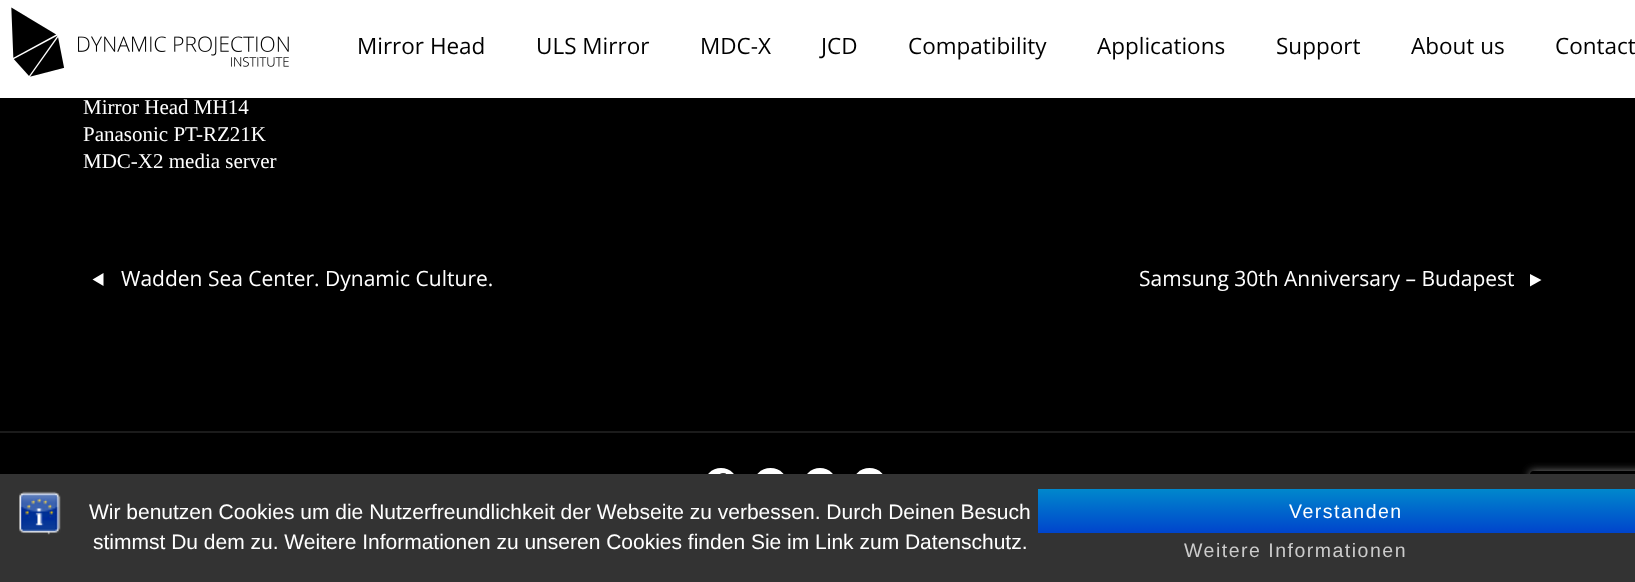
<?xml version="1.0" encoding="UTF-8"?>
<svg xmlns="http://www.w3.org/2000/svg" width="1635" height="582">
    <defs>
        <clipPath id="clip1"><path d="M 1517 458 H 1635 V 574 H 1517 Z M 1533 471 H 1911 C 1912.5 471 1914 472.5 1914 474 V 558 C 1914 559.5 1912.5 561 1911 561 H 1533 C 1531.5 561 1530 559.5 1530 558 V 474 C 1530 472.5 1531.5 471 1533 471 Z" clip-rule="evenodd"/></clipPath>
        <filter id="blur1" x="-50%" y="-200%" width="200%" height="500%"><feGaussianBlur stdDeviation="4"/></filter>
        <linearGradient id="g1" gradientUnits="userSpaceOnUse" x1="1346" y1="489" x2="1346" y2="533"><stop offset="0" stop-color="#0088CC"/><stop offset="1" stop-color="#0044CC"/></linearGradient>
    </defs>
    <rect width="100%" height="100%" fill="#000000"/>
    <rect x="0" y="0" width="1635" height="98" fill="#FFFFFF"/>
    <image x="11" y="7" width="278" height="70" href="img_01.png"/>
    <text x="357" y="54" font-family="Open Sans" font-size="22.5" fill="#000000">Mirror Head</text>
    <text x="536" y="54" font-family="Open Sans" font-size="22.5" fill="#000000">ULS Mirror</text>
    <text x="700" y="54" font-family="Open Sans" font-size="22.5" fill="#000000">MDC-X</text>
    <text x="821" y="54" font-family="Open Sans" font-size="22.5" fill="#000000">JCD</text>
    <text x="908" y="54" font-family="Open Sans" font-size="22.5" fill="#000000">Compatibility</text>
    <text x="1097" y="54" font-family="Open Sans" font-size="22.5" fill="#000000">Applications</text>
    <text x="1276" y="54" font-family="Open Sans" font-size="22.5" fill="#000000">Support</text>
    <text x="1411" y="54" font-family="Open Sans" font-size="22.5" fill="#000000">About us</text>
    <text x="1555" y="54" font-family="Open Sans" font-size="22.5" fill="#000000">Contact</text>
    <text font-family="Liberation Serif" font-size="21" fill="#FFFFFF">
        <tspan x="83" y="114">Mirror Head MH14</tspan>
        <tspan x="83" y="141">Panasonic PT-RZ21K</tspan>
        <tspan x="83" y="168">MDC-X2 media server</tspan>
    </text>
    <text x="121" y="286" font-family="Open Sans" font-size="21" fill="#FFFFFF">Wadden Sea Center. Dynamic Culture.</text>
    <path d="M 103.5 286 L 92.5 279.5 L 103.5 273 Z" fill="#FFFFFF"/>
    <text x="1139" y="286" font-family="Open Sans" font-size="21" fill="#FFFFFF">Samsung 30th Anniversary – Budapest</text>
    <path d="M 1530 274 L 1541.5 280 L 1530 286.5 Z" fill="#FFFFFF"/>
    <rect x="0" y="431" width="1635" height="2" fill="#1B1B1B"/>
    <rect x="704" y="468" width="34" height="35" rx="17" fill="#FFFFFF"/>
    <image x="720" y="473" width="6" height="1" href="img_02.png"/>
    <circle cx="770.5" cy="485.5" r="17.5" fill="#FFFFFF"/>
    <rect x="803" y="468" width="34" height="35" rx="17" fill="#FFFFFF"/>
    <circle cx="869.5" cy="485.5" r="17.5" fill="#FFFFFF"/>
    <g clip-path="url(#clip1)">
        <rect x="1530" y="471" width="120" height="90" rx="3" fill="#808080" filter="url(#blur1)"/>
    </g>
    <rect x="0" y="474" width="1635" height="108" fill="#333333"/>
    <image x="19" y="491" width="42" height="44" href="img_03.png"/>
    <text x="89" y="519" font-family="Liberation Sans" font-size="21" fill="#FFFFFF">Wir benutzen Cookies um die Nutzerfreundlichkeit der Webseite zu verbessen. Durch Deinen Besuch</text>
    <text x="93" y="549" font-family="Liberation Sans" font-size="21" fill="#FFFFFF">stimmst Du dem zu. Weitere Informationen zu unseren Cookies finden Sie im Link zum Datenschutz.</text>
    <rect x="1038" y="489" width="597" height="44" fill="url(#g1)"/>
    <text x="1289" y="518" font-family="Liberation Sans" font-size="19.5" letter-spacing="1.5" fill="#FFFFFF">Verstanden</text>
    <text x="1184" y="557" font-family="Liberation Sans" font-size="19.5" letter-spacing="1.5" fill="#CCCCCC">Weitere Informationen</text>
</svg>
